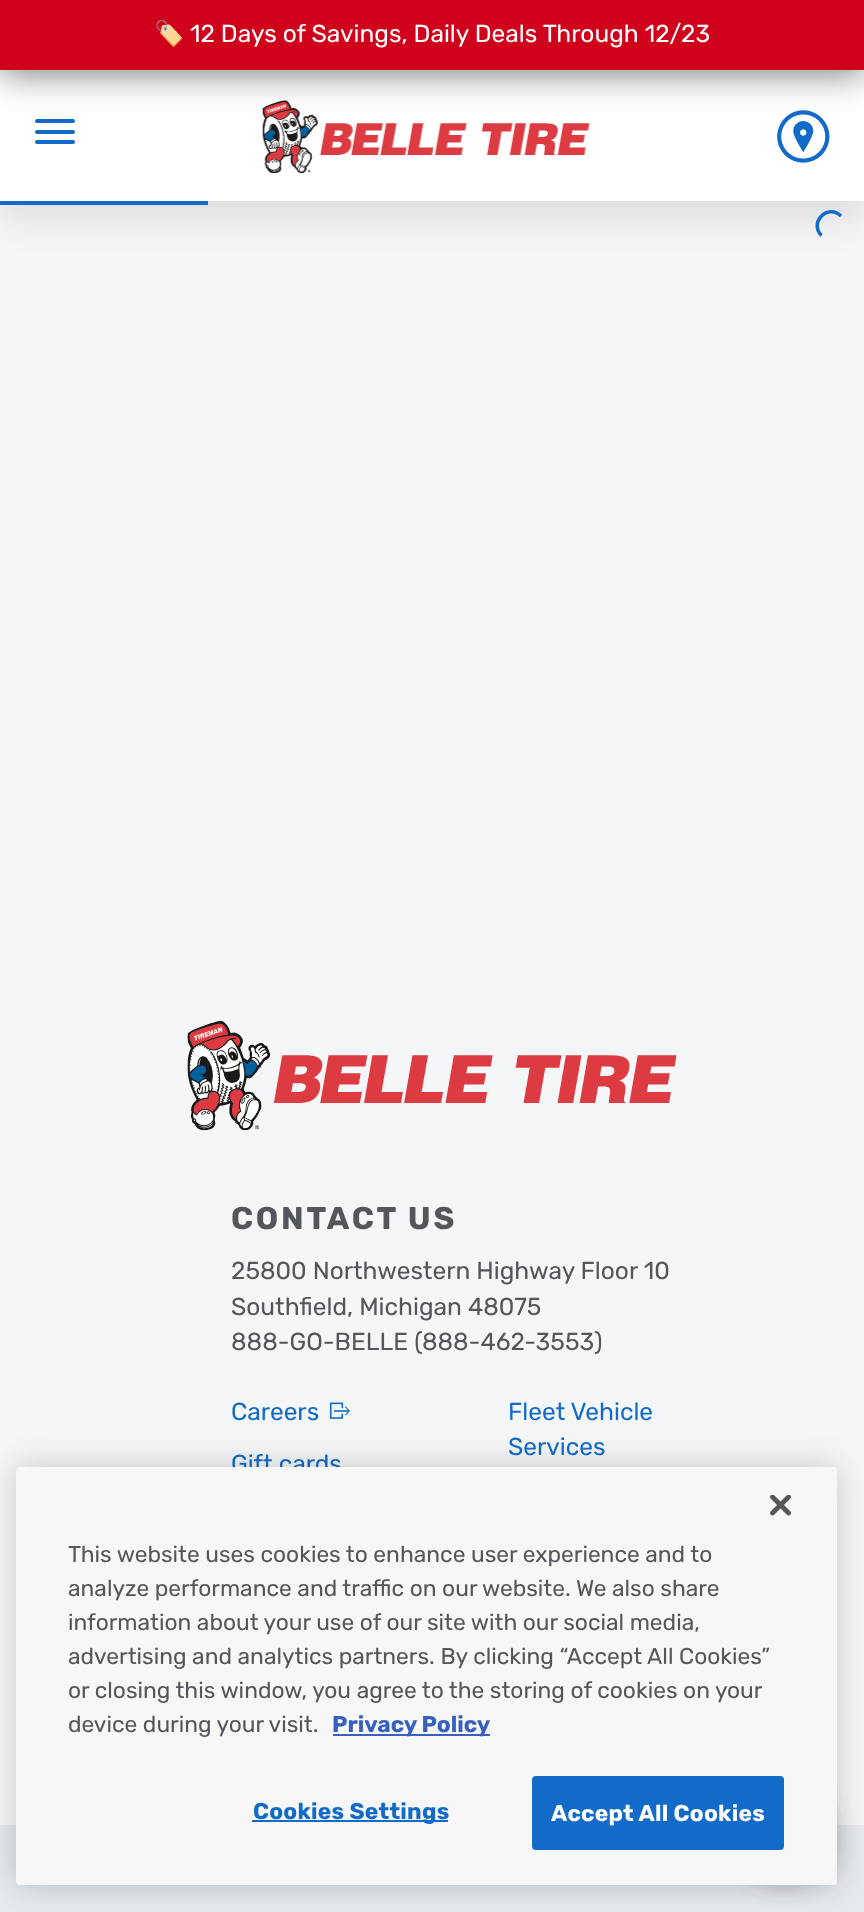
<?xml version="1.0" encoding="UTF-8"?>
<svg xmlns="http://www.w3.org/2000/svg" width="864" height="1912">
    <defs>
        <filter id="blur1" x="-50%" y="-200%" width="200%" height="500%"><feGaussianBlur stdDeviation="17.5"/></filter>
        <filter id="blur2" x="-50%" y="-200%" width="200%" height="500%"><feGaussianBlur stdDeviation="16"/></filter>
        <filter id="blur3" x="-50%" y="-200%" width="200%" height="500%"><feGaussianBlur stdDeviation="9.5"/></filter>
    </defs>
    <rect width="100%" height="100%" fill="#F4F6F7"/>
    <rect x="0" y="18" width="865" height="201" fill="#000000" fill-opacity="0.1" filter="url(#blur1)"/>
    <rect x="0" y="70" width="864" height="131" fill="#FFFFFF"/>
    <rect x="0" y="4" width="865" height="70" fill="#000000" fill-opacity="0.5" filter="url(#blur1)"/>
    <rect x="0" y="0" width="864" height="70" fill="#D0021B"/>
    <text x="154" y="42" font-family="Noto Color Emoji" font-size="24.5" font-weight="700" fill="#FFFFFF">🏷️</text>
    <text x="190" y="42" font-family="Rubik" font-size="24.5" fill="#FFFFFF">12 Days of Savings, Daily Deals Through 12/23</text>
    <rect x="35" y="119" width="40" height="4" rx="2" fill="#126BC9"/>
    <rect x="35" y="130" width="40" height="4" rx="2" fill="#126BC9"/>
    <rect x="35" y="140" width="40" height="4" rx="2" fill="#126BC9"/>
    <image x="262" y="100" width="328" height="73" href="img_01.png"/>
    <image x="777" y="110" width="53" height="53" href="img_02.png"/>
    <rect x="0" y="201" width="208" height="4" fill="#126BC9"/>
    <path d="M 821.5 235.5 C 808.5 222.5 828 203 841 216" fill="none" stroke="#126BC9" stroke-width="3.5"/>
    <image x="187" y="1021" width="490" height="110" href="img_03.png"/>
    <text x="231" y="1229" font-family="Rubik" font-size="31.5" font-weight="700" letter-spacing="2.75" fill="#53565A">CONTACT US</text>
    <text font-family="Rubik" font-size="24.5" fill="#53565A">
        <tspan x="231" y="1279">25800 Northwestern Highway Floor 10</tspan>
        <tspan x="231" y="1315">Southfield, Michigan 48075</tspan>
        <tspan x="231" y="1350">888-GO-BELLE (888-462-3553)</tspan>
    </text>
    <text x="231" y="1420" font-family="Rubik" font-size="24.5" fill="#126BC9">Careers</text>
    <image x="329" y="1402" width="21" height="17" href="img_04.png"/>
    <text x="231" y="1472" font-family="Rubik" font-size="24.5" fill="#126BC9">Gift cards</text>
    <text font-family="Rubik" font-size="24.5" fill="#126BC9">
        <tspan x="508" y="1420">Fleet Vehicle</tspan>
        <tspan x="508" y="1455">Services</tspan>
    </text>
    <rect x="0" y="1825" width="864" height="87" fill="#E6E9ED"/>
    <rect x="16" y="1467" width="821" height="418" rx="4" fill="#000000" fill-opacity="0.2" filter="url(#blur2)"/>
    <rect x="732" y="1783" width="105" height="105" rx="52.5" fill="#585858" fill-opacity="0.27" filter="url(#blur3)"/>
    <rect x="16" y="1467" width="821" height="418" rx="4" fill="#F7F7F7"/>
    <image x="770" y="1495" width="21" height="21" href="img_05.png"/>
    <text font-family="Rubik" font-size="22.75" fill="#53565A">
        <tspan x="68" y="1562">This website uses cookies to enhance user experience and to</tspan>
        <tspan x="68" y="1596">analyze performance and traffic on our website. We also share</tspan>
        <tspan x="68" y="1630">information about your use of our site with our social media,</tspan>
        <tspan x="68" y="1664">advertising and analytics partners. By clicking “Accept All Cookies”</tspan>
        <tspan x="68" y="1698">or closing this window, you agree to the storing of cookies on your</tspan>
        <tspan x="68" y="1732">device during your visit.</tspan>
    </text>
    <rect x="333" y="1734" width="157" height="2" fill="#3860BE"/>
    <text x="332" y="1732" font-family="Rubik" font-size="22.75" font-weight="700" fill="#3860BE">Privacy Policy</text>
    <rect x="252" y="1820" width="196" height="2" fill="#126BC9"/>
    <text x="253" y="1819" font-family="Rubik" font-size="22.75" font-weight="700" letter-spacing="0.25" fill="#126BC9">Cookies Settings</text>
    <rect x="533" y="1777" width="250" height="72" rx="3" fill="#126BC9" stroke="#126BC9" stroke-width="2"/>
    <text x="551" y="1821" font-family="Rubik" font-size="22.75" font-weight="700" letter-spacing="0.25" fill="#FFFFFF">Accept All Cookies</text>
</svg>
